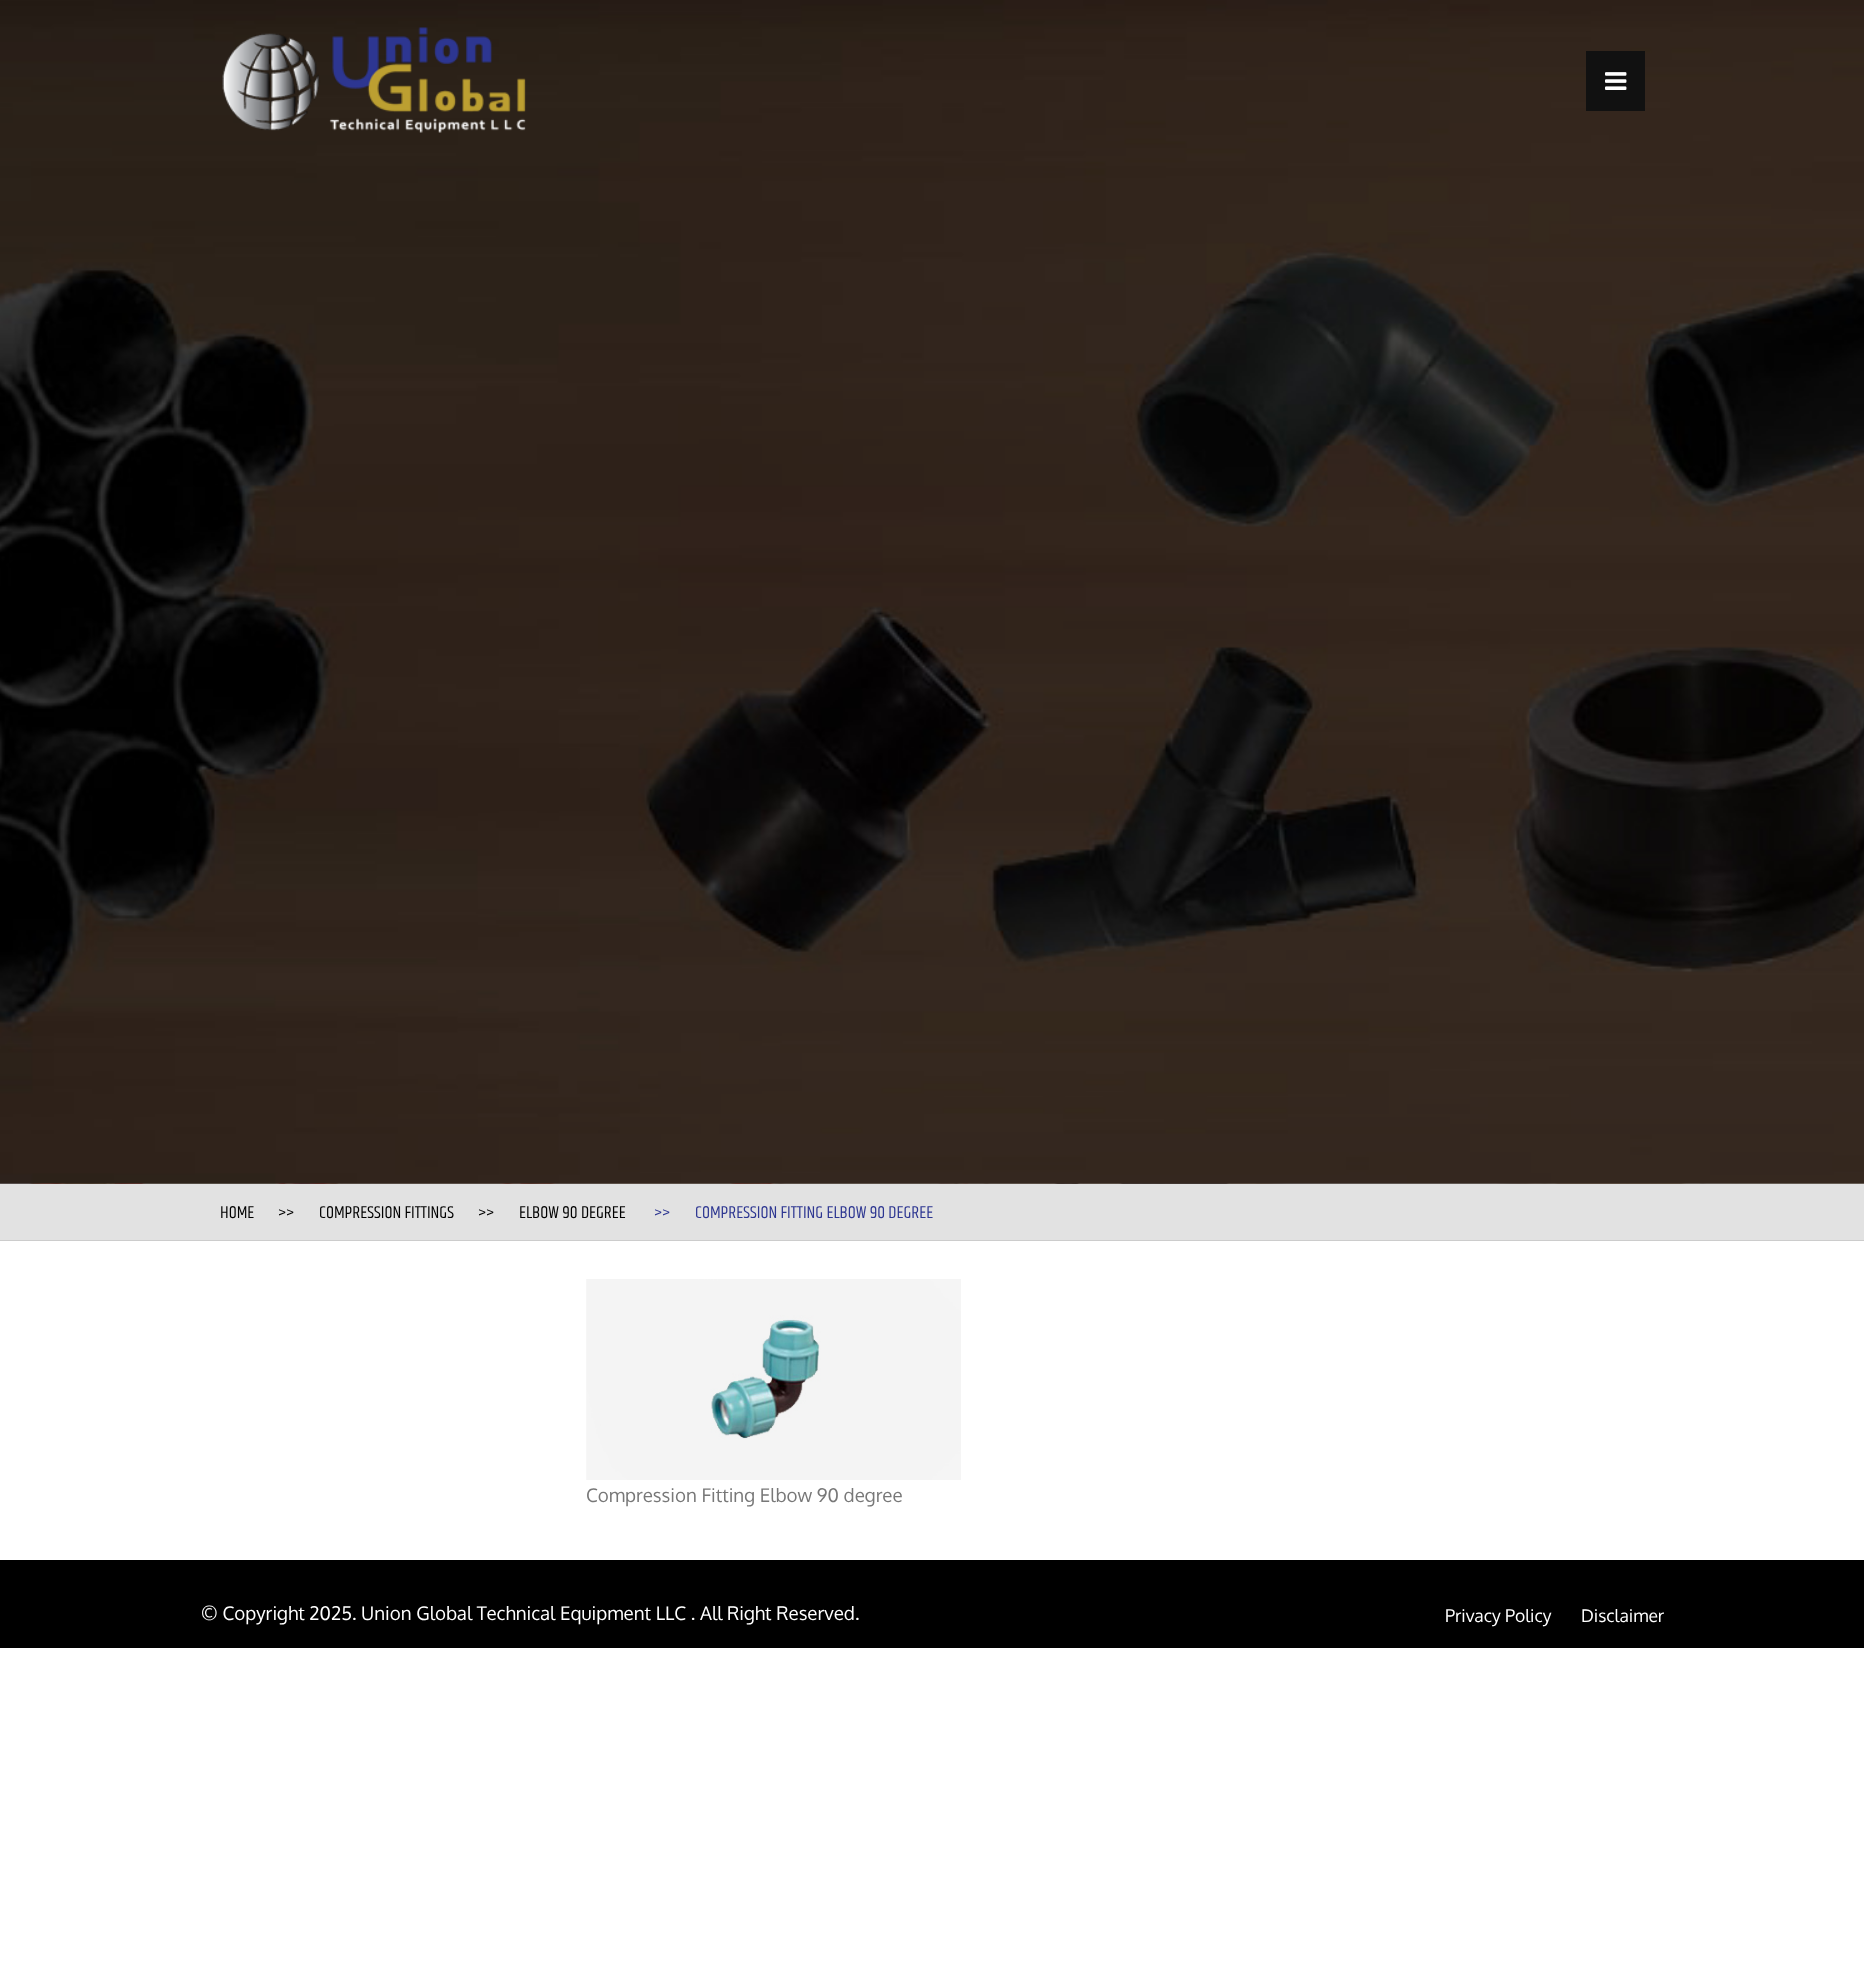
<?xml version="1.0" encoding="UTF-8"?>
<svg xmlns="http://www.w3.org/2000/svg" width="1864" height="1973">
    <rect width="100%" height="100%" fill="#FFFFFF"/>
    <image x="0" y="1183" width="1864" height="1" href="img_01.png"/>
    <image x="0" y="0" width="1864" height="1184" href="img_02.png"/>
    <image x="222" y="27" width="304" height="106" href="img_03.png"/>
    <rect x="1586" y="51" width="59" height="60" fill="#111111"/>
    <image x="1605" y="72" width="22" height="18" href="img_04.png"/>
    <rect x="0" y="1184" width="1864" height="56" fill="#E2E2E2"/>
    <rect x="0" y="1240" width="1864" height="1" fill="#CCCCCC"/>
    <text x="220" y="1218" font-family="Khand" font-size="17.5" fill="#000000">HOME</text>
    <text x="278" y="1218" font-family="Khand" font-size="17.5" fill="#000000">&gt;&gt;</text>
    <text x="319" y="1218" font-family="Khand" font-size="17.5" fill="#000000">COMPRESSION FITTINGS</text>
    <text x="478" y="1218" font-family="Khand" font-size="17.5" fill="#000000">&gt;&gt;</text>
    <text x="519" y="1218" font-family="Khand" font-size="17.5" fill="#000000">ELBOW 90 DEGREE</text>
    <text x="654" y="1218" font-family="Khand" font-size="17.5" fill="#2D3691">&gt;&gt;</text>
    <text x="695" y="1218" font-family="Khand" font-size="17.5" fill="#2D3691">COMPRESSION FITTING ELBOW 90 DEGREE</text>
    <image x="586" y="1279" width="375" height="201" href="img_05.png"/>
    <text x="586" y="1502" font-family="Oxygen" font-size="18.75" fill="#787878">Compression Fitting Elbow 90 degree</text>
    <rect x="0" y="1560" width="1864" height="88" fill="#000000"/>
    <text x="201" y="1620" font-family="Oxygen" font-size="18.75" fill="#FFFFFF">© Copyright 2025. Union Global Technical Equipment LLC . All Right Reserved.</text>
    <text x="1445" y="1622" font-family="Oxygen" font-size="17.5" fill="#FFFFFF">Privacy Policy</text>
    <text x="1581" y="1622" font-family="Oxygen" font-size="17.5" fill="#FFFFFF">Disclaimer</text>
</svg>
